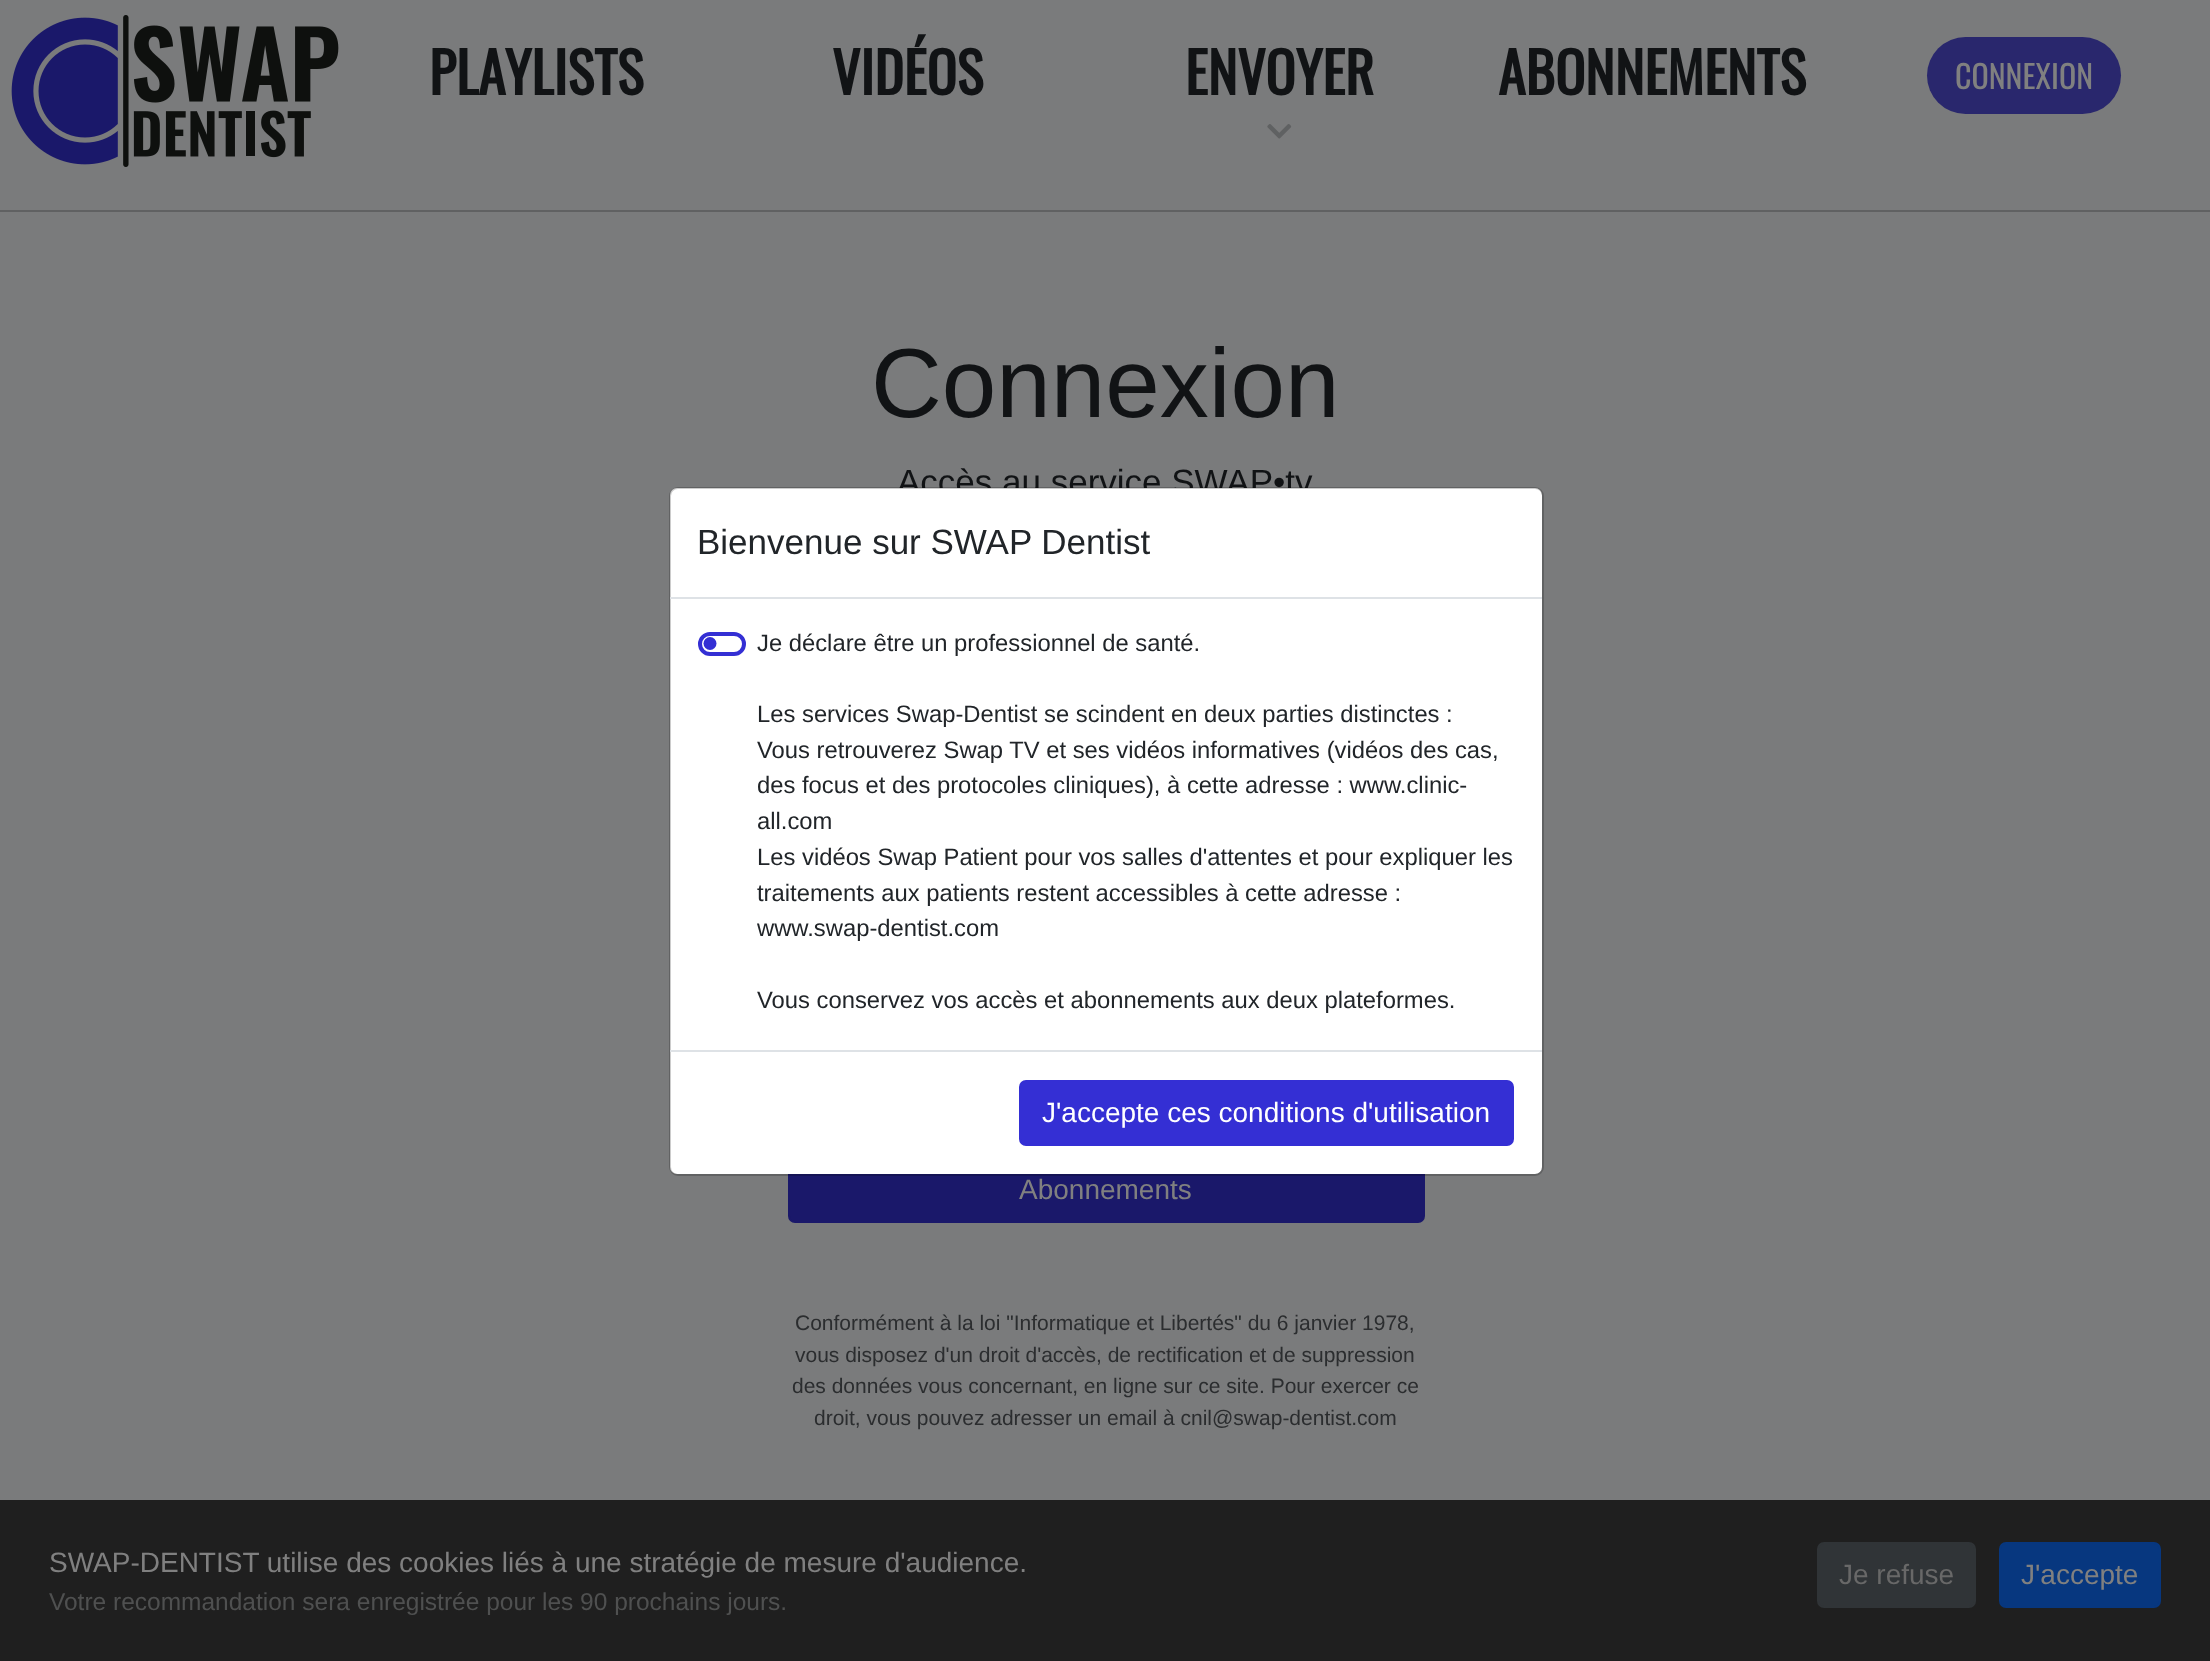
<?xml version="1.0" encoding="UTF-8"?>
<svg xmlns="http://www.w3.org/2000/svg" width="2210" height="1661">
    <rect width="100%" height="100%" fill="#7A7B7C"/>
    <image x="11" y="15" width="328" height="152" href="img_01.png"/>
    <text x="429" y="95" font-family="Oswald" font-size="56" font-weight="700" fill="#111315">PLAYLISTS</text>
    <text x="832" y="95" font-family="Oswald" font-size="56" font-weight="700" fill="#111315">VIDÉOS</text>
    <text x="1185" y="95" font-family="Oswald" font-size="56" font-weight="700" fill="#111315">ENVOYER</text>
    <image x="1267" y="124" width="25" height="15" href="img_02.png"/>
    <text x="1498" y="95" font-family="Oswald" font-size="56" font-weight="700" fill="#111315">ABONNEMENTS</text>
    <rect x="1927" y="37" width="194" height="77" rx="38.5" fill="#29276D"/>
    <text x="1955" y="89" font-family="Oswald" font-size="32" fill="#808080">CONNEXION</text>
    <rect x="0" y="210" width="2210" height="2" fill="#606162"/>
    <text x="871" y="417" font-family="Liberation Sans" font-size="98" fill="#111315">Connexion</text>
    <text x="897" y="494" font-family="Liberation Sans" font-size="35" fill="#111315">Accès au service SWAP•tv</text>
    <rect x="789" y="1158" width="635" height="64" rx="6" fill="#1A186A" stroke="#1A186A" stroke-width="2"/>
    <text x="1019" y="1199" font-family="Liberation Sans" font-size="28" fill="#808080">Abonnements</text>
    <text font-family="Liberation Sans" font-size="21" fill="#2B2D2F">
        <tspan x="795" y="1330">Conformément à la loi "Informatique et Libertés" du 6 janvier 1978,</tspan>
        <tspan x="795" y="1362">vous disposez d'un droit d'accès, de rectification et de suppression</tspan>
    </text>
    <text x="792" y="1393" font-family="Liberation Sans" font-size="21" fill="#2B2D2F">des données vous concernant, en ligne sur ce site. Pour exercer ce</text>
    <text x="814" y="1425" font-family="Liberation Sans" font-size="21" fill="#2B2D2F">droit, vous pouvez adresser un email à cnil@swap-dentist.com</text>
    <rect x="670" y="488" width="872" height="686" rx="7" fill="#FFFFFF"/>
    <rect x="670" y="488" width="873" height="687" rx="8" fill="none" stroke="#000000" stroke-opacity="0.2" stroke-width="2"/>
    <rect x="670" y="597" width="872" height="2" fill="#DEE2E6"/>
    <text x="697" y="554" font-family="Liberation Sans" font-size="35" fill="#212529">Bienvenue sur SWAP Dentist</text>
    <circle cx="710" cy="643.5" r="6.5" fill="#342FD4"/>
    <rect x="700" y="634" width="44" height="20" rx="10" fill="none" stroke="#342FD4" stroke-width="4"/>
    <text x="757" y="651" font-family="Liberation Sans" font-size="23.8" fill="#212529">Je déclare être un professionnel de santé.</text>
    <text font-family="Liberation Sans" font-size="23.8" fill="#212529">
        <tspan x="757" y="722">Les services Swap-Dentist se scindent en deux parties distinctes :</tspan>
        <tspan x="757" y="758">Vous retrouverez Swap TV et ses vidéos informatives (vidéos des cas,</tspan>
        <tspan x="757" y="793">des focus et des protocoles cliniques), à cette adresse : www.clinic-</tspan>
        <tspan x="757" y="829">all.com</tspan>
        <tspan x="757" y="865">Les vidéos Swap Patient pour vos salles d'attentes et pour expliquer les</tspan>
        <tspan x="757" y="901">traitements aux patients restent accessibles à cette adresse :</tspan>
        <tspan x="757" y="936">www.swap-dentist.com</tspan>
    </text>
    <text x="757" y="1008" font-family="Liberation Sans" font-size="23.8" fill="#212529">Vous conservez vos accès et abonnements aux deux plateformes.</text>
    <rect x="670" y="1050" width="872" height="2" fill="#DEE2E6"/>
    <rect x="1020" y="1081" width="493" height="64" rx="6" fill="#342FD4" stroke="#342FD4" stroke-width="2"/>
    <text x="1042" y="1122" font-family="Liberation Sans" font-size="28" fill="#FFFFFF">J'accepte ces conditions d'utilisation</text>
    <rect x="0" y="1500" width="2210" height="161" fill="#1F1F1F"/>
    <text x="49" y="1572" font-family="Liberation Sans" font-size="28" fill="#808080">SWAP-DENTIST utilise des cookies liés à une stratégie de mesure d'audience.</text>
    <text x="49" y="1610" font-family="Liberation Sans" font-size="24.5" fill="#4F5050">Votre recommandation sera enregistrée pour les 90 prochains jours.</text>
    <rect x="1818" y="1543" width="157" height="64" rx="6" fill="#303437" stroke="#303437" stroke-width="2"/>
    <text x="1839" y="1584" font-family="Liberation Sans" font-size="28" fill="#686868">Je refuse</text>
    <rect x="2000" y="1543" width="160" height="64" rx="6" fill="#07377F" stroke="#07377F" stroke-width="2"/>
    <text x="2021" y="1584" font-family="Liberation Sans" font-size="28" fill="#808080">J'accepte</text>
</svg>
